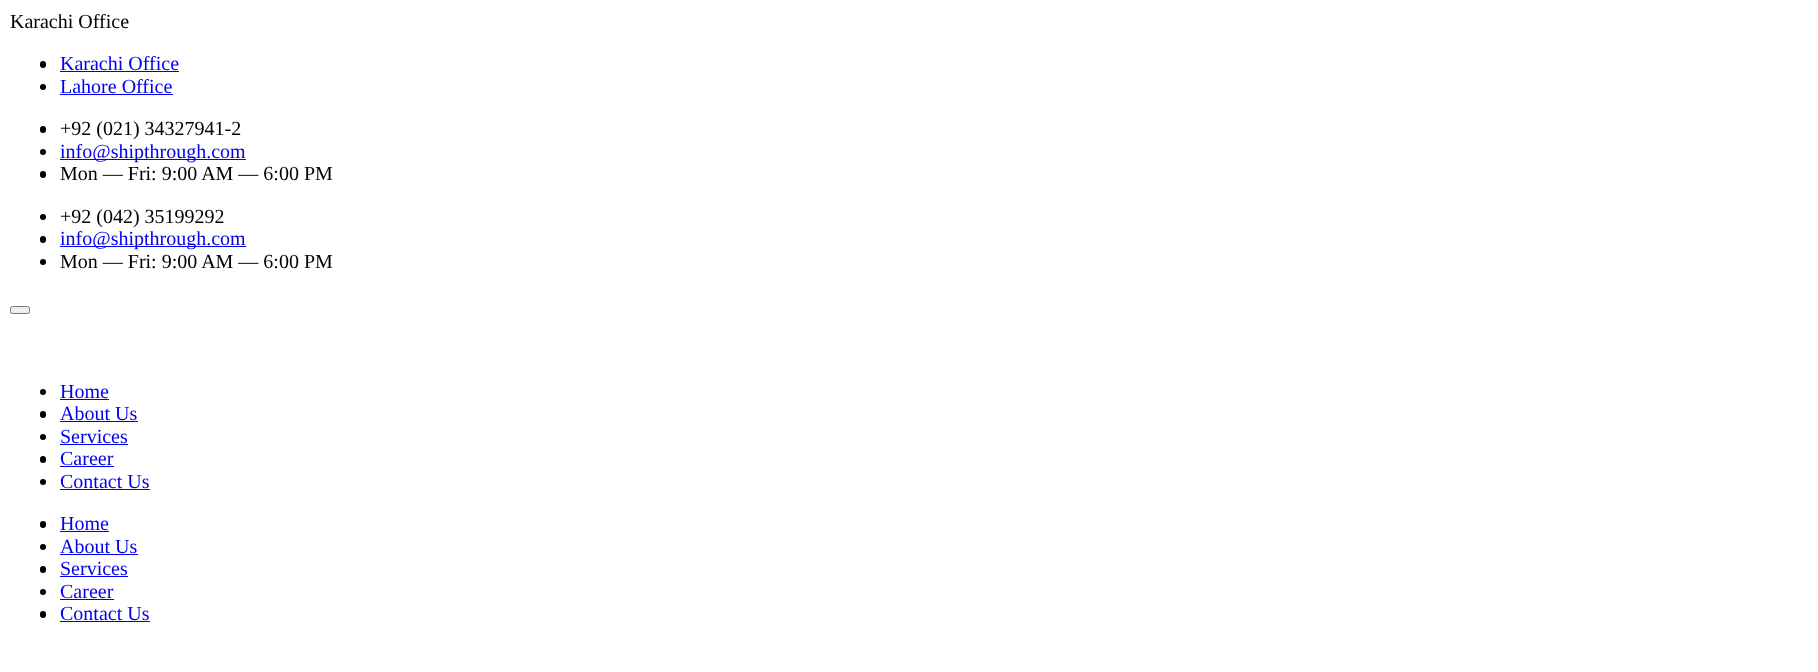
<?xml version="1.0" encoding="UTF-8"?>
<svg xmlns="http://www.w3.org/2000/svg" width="1818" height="672">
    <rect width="100%" height="100%" fill="#FFFFFF"/>
    <text x="10" y="28" font-family="Liberation Serif" font-size="20" fill="#000000">Karachi Office</text>
    <rect x="40" y="61" width="6" height="7" rx="3" fill="#000000"/>
    <text x="60" y="70" font-family="Liberation Serif" font-size="20" fill="#0000EE">Karachi Office</text>
    <rect x="60" y="71" width="119" height="1" fill="#0000EE"/>
    <circle cx="43" cy="87" r="3" fill="#000000"/>
    <text x="60" y="93" font-family="Liberation Serif" font-size="20" fill="#0000EE">Lahore Office</text>
    <rect x="60" y="94" width="113" height="1" fill="#0000EE"/>
    <rect x="40" y="126" width="6" height="7" rx="3" fill="#000000"/>
    <text x="60" y="135" font-family="Liberation Serif" font-size="20" fill="#000000">+92 (021) 34327941-2</text>
    <circle cx="43" cy="152" r="3" fill="#000000"/>
    <rect x="60" y="159" width="186" height="1" fill="#0000EE"/>
    <text x="60" y="158" font-family="Liberation Serif" font-size="20" fill="#0000EE">info@shipthrough.com</text>
    <rect x="40" y="171" width="6" height="7" rx="3" fill="#000000"/>
    <text x="60" y="180" font-family="Liberation Serif" font-size="20" fill="#000000">Mon — Fri: 9:00 AM — 6:00 PM</text>
    <circle cx="43" cy="217" r="3" fill="#000000"/>
    <text x="60" y="223" font-family="Liberation Serif" font-size="20" fill="#000000">+92 (042) 35199292</text>
    <rect x="40" y="236" width="6" height="7" rx="3" fill="#000000"/>
    <rect x="60" y="246" width="186" height="1" fill="#0000EE"/>
    <text x="60" y="245" font-family="Liberation Serif" font-size="20" fill="#0000EE">info@shipthrough.com</text>
    <circle cx="43" cy="262" r="3" fill="#000000"/>
    <text x="60" y="268" font-family="Liberation Serif" font-size="20" fill="#000000">Mon — Fri: 9:00 AM — 6:00 PM</text>
    <rect x="10.5" y="306.5" width="19" height="7" rx="2" fill="#EFEFEF" stroke="#767676"/>
    <circle cx="43" cy="392" r="3" fill="#000000"/>
    <text x="60" y="398" font-family="Liberation Serif" font-size="20" fill="#0000EE">Home</text>
    <rect x="60" y="399" width="49" height="1" fill="#0000EE"/>
    <rect x="40" y="411" width="6" height="7" rx="3" fill="#000000"/>
    <text x="60" y="420" font-family="Liberation Serif" font-size="20" fill="#0000EE">About Us</text>
    <rect x="60" y="421" width="78" height="1" fill="#0000EE"/>
    <circle cx="43" cy="437" r="3" fill="#000000"/>
    <text x="60" y="443" font-family="Liberation Serif" font-size="20" fill="#0000EE">Services</text>
    <rect x="60" y="444" width="68" height="1" fill="#0000EE"/>
    <rect x="40" y="456" width="6" height="7" rx="3" fill="#000000"/>
    <text x="60" y="465" font-family="Liberation Serif" font-size="20" fill="#0000EE">Career</text>
    <rect x="60" y="466" width="54" height="1" fill="#0000EE"/>
    <circle cx="43" cy="482" r="3" fill="#000000"/>
    <text x="60" y="488" font-family="Liberation Serif" font-size="20" fill="#0000EE">Contact Us</text>
    <rect x="60" y="489" width="90" height="1" fill="#0000EE"/>
    <rect x="40" y="521" width="6" height="7" rx="3" fill="#000000"/>
    <text x="60" y="530" font-family="Liberation Serif" font-size="20" fill="#0000EE">Home</text>
    <rect x="60" y="531" width="49" height="1" fill="#0000EE"/>
    <circle cx="43" cy="547" r="3" fill="#000000"/>
    <text x="60" y="553" font-family="Liberation Serif" font-size="20" fill="#0000EE">About Us</text>
    <rect x="60" y="554" width="78" height="1" fill="#0000EE"/>
    <rect x="40" y="566" width="6" height="7" rx="3" fill="#000000"/>
    <text x="60" y="575" font-family="Liberation Serif" font-size="20" fill="#0000EE">Services</text>
    <rect x="60" y="576" width="68" height="1" fill="#0000EE"/>
    <circle cx="43" cy="592" r="3" fill="#000000"/>
    <text x="60" y="598" font-family="Liberation Serif" font-size="20" fill="#0000EE">Career</text>
    <rect x="60" y="599" width="54" height="1" fill="#0000EE"/>
    <rect x="40" y="611" width="6" height="7" rx="3" fill="#000000"/>
    <text x="60" y="620" font-family="Liberation Serif" font-size="20" fill="#0000EE">Contact Us</text>
    <rect x="60" y="621" width="90" height="1" fill="#0000EE"/>
</svg>
